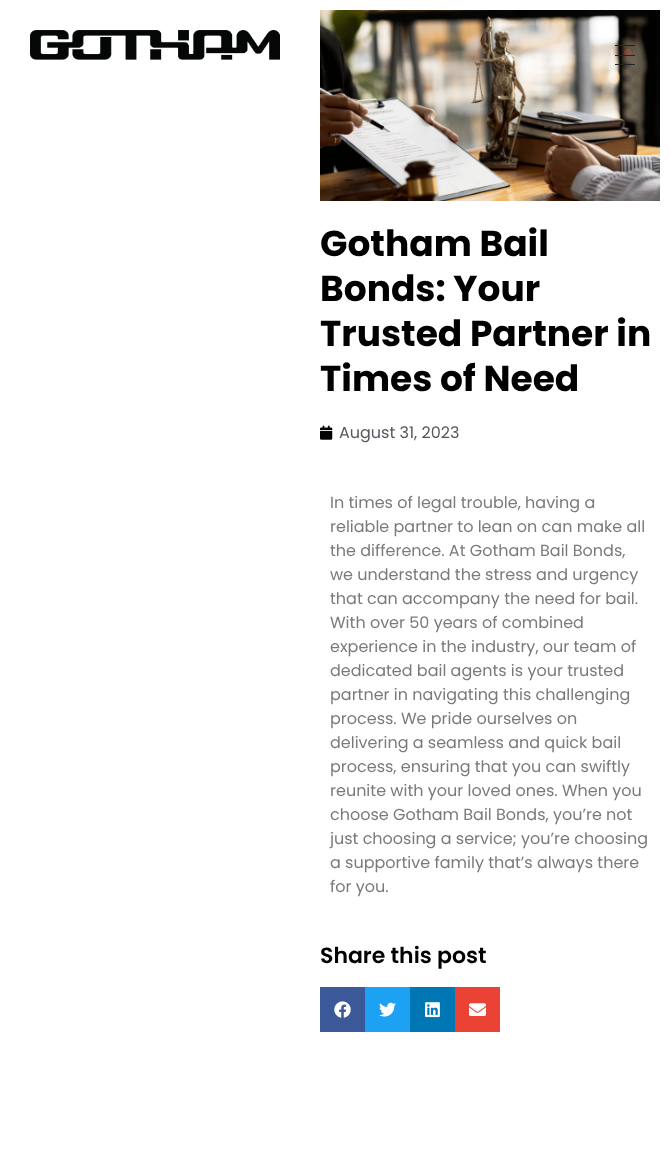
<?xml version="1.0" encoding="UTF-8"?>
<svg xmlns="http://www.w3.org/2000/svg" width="670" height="1158">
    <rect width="100%" height="100%" fill="#FFFFFF"/>
    <image x="30" y="30" width="250" height="30" href="img_01.png"/>
    <image x="320" y="10" width="340" height="191" href="img_02.png"/>
    <rect x="615" y="45" width="20" height="1" fill="#222222"/>
    <rect x="615" y="55" width="20" height="1" fill="#222222"/>
    <rect x="615" y="64" width="20" height="1" fill="#222222"/>
    <text font-family="Poppins" font-size="36" font-weight="700" fill="#000000">
        <tspan x="320" y="256">Gotham Bail</tspan>
        <tspan x="320" y="301">Bonds: Your</tspan>
        <tspan x="320" y="346">Trusted Partner in</tspan>
        <tspan x="320" y="391">Times of Need</tspan>
    </text>
    <image x="320" y="425" width="13" height="15" href="img_03.png"/>
    <text x="339" y="438" font-family="Poppins" font-size="16" fill="#54595F">August 31, 2023</text>
    <text font-family="Poppins" font-size="16" fill="#7A7A7A">
        <tspan x="330" y="508">In times of legal trouble, having a</tspan>
        <tspan x="330" y="532">reliable partner to lean on can make all</tspan>
        <tspan x="330" y="556">the difference. At Gotham Bail Bonds,</tspan>
        <tspan x="330" y="580">we understand the stress and urgency</tspan>
        <tspan x="330" y="604">that can accompany the need for bail.</tspan>
        <tspan x="330" y="628">With over 50 years of combined</tspan>
        <tspan x="330" y="652">experience in the industry, our team of</tspan>
        <tspan x="330" y="676">dedicated bail agents is your trusted</tspan>
        <tspan x="330" y="700">partner in navigating this challenging</tspan>
        <tspan x="330" y="724">process. We pride ourselves on</tspan>
        <tspan x="330" y="748">delivering a seamless and quick bail</tspan>
        <tspan x="330" y="772">process, ensuring that you can swiftly</tspan>
        <tspan x="330" y="796">reunite with your loved ones. When you</tspan>
        <tspan x="330" y="820">choose Gotham Bail Bonds, you’re not</tspan>
        <tspan x="330" y="844">just choosing a service; you’re choosing</tspan>
        <tspan x="330" y="868">a supportive family that’s always there</tspan>
        <tspan x="330" y="892">for you.</tspan>
    </text>
    <text x="320" y="963" font-family="Poppins" font-size="22" font-weight="600" fill="#000000">Share this post</text>
    <rect x="320" y="987" width="45" height="45" fill="#3B5998"/>
    <image x="334" y="1001" width="17" height="17" href="img_04.png"/>
    <rect x="365" y="987" width="45" height="45" fill="#1DA1F2"/>
    <image x="379" y="1002" width="17" height="15" href="img_05.png"/>
    <rect x="410" y="987" width="45" height="45" fill="#0077B5"/>
    <image x="425" y="1002" width="15" height="16" href="img_06.png"/>
    <rect x="455" y="987" width="45" height="45" fill="#EA4335"/>
    <image x="469" y="1003" width="17" height="13" href="img_07.png"/>
</svg>
